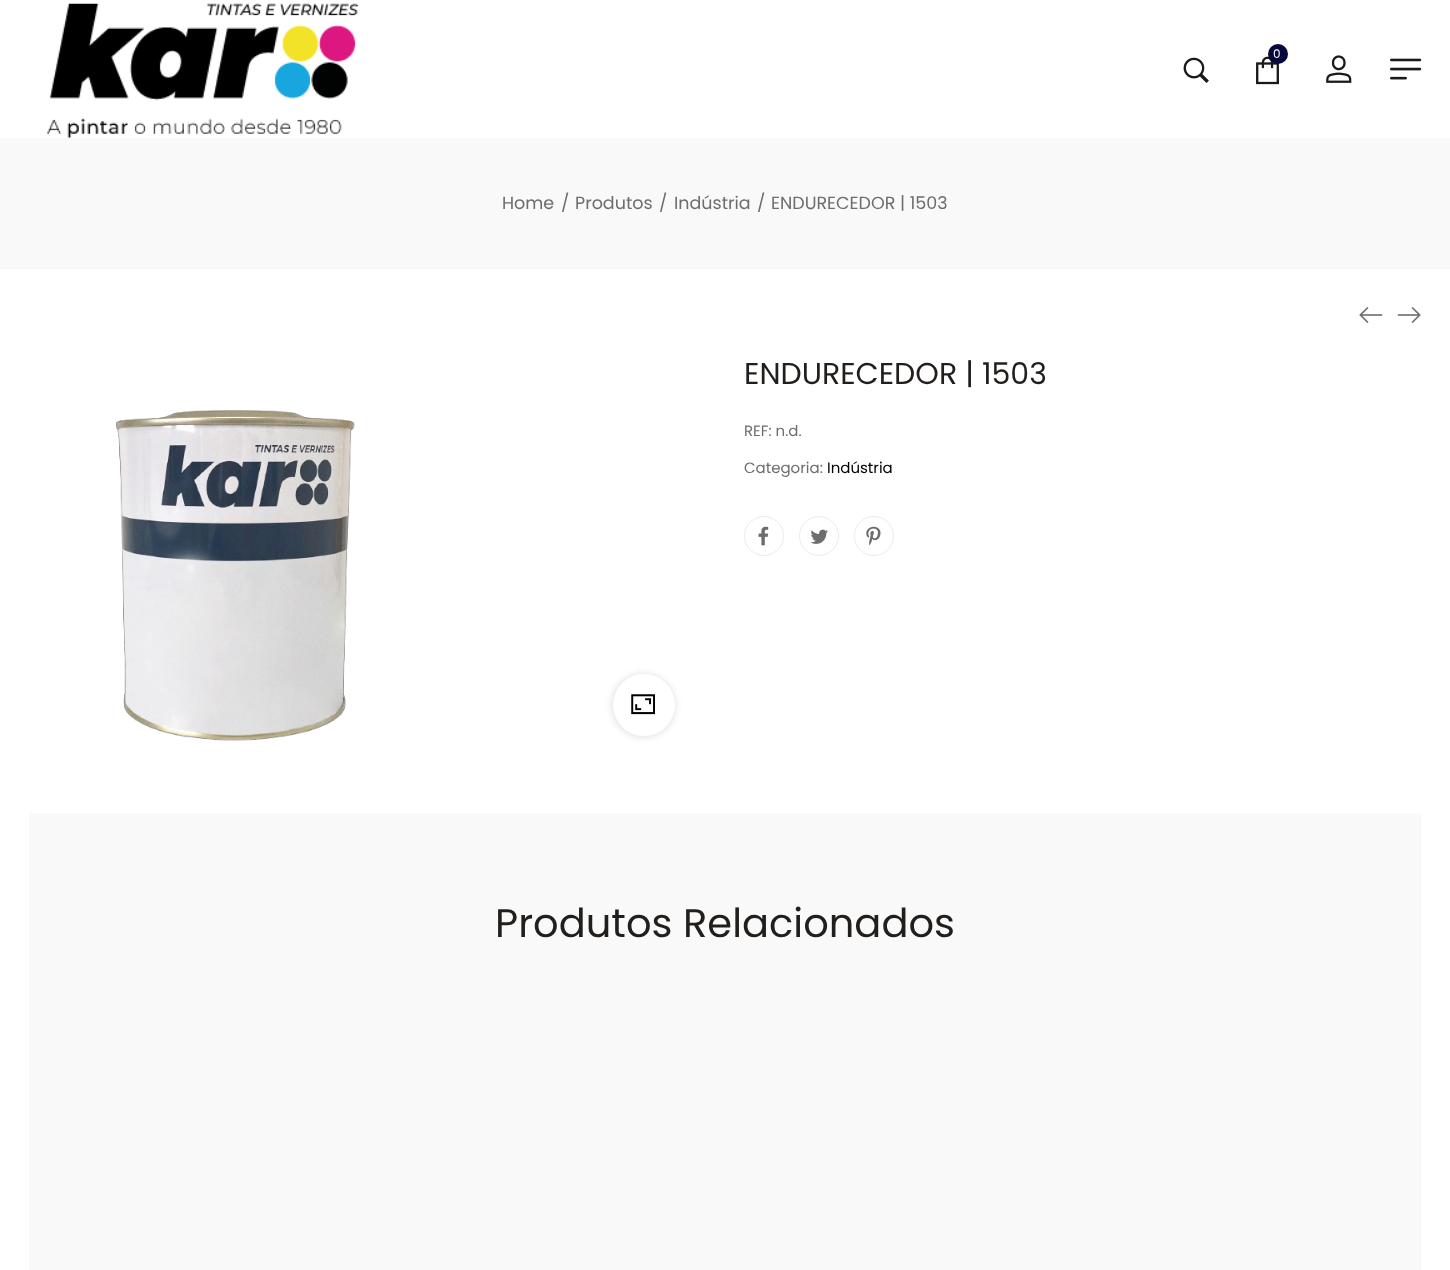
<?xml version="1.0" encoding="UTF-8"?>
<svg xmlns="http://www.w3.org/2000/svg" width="1450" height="1270">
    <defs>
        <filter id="blur1" x="-50%" y="-200%" width="200%" height="500%"><feGaussianBlur stdDeviation="3"/></filter>
    </defs>
    <rect width="100%" height="100%" fill="#FFFFFF"/>
    <image x="46" y="3" width="313" height="135" href="img_01.png"/>
    <image x="1256" y="56" width="23" height="29" href="img_02.png"/>
    <circle cx="1278" cy="54" r="10" fill="#07093D"/>
    <text x="1273" y="58" font-family="Poppins" font-size="12" fill="#FFFFFF">0</text>
    <image x="1183" y="57" width="26" height="26" href="img_03.png"/>
    <image x="1326" y="55" width="26" height="28" href="img_04.png"/>
    <image x="1390" y="58" width="32" height="22" href="img_05.png"/>
    <rect x="0" y="138" width="1450" height="131" fill="#F9F9F9"/>
    <text x="502" y="209" font-family="Poppins" font-size="17.5" fill="#6D6D6D">Home</text>
    <text x="561" y="209" font-family="Poppins" font-size="17.5" fill="#6D6D6D">/</text>
    <text x="575" y="209" font-family="Poppins" font-size="17.5" fill="#6D6D6D">Produtos</text>
    <text x="659" y="209" font-family="Poppins" font-size="17.5" fill="#6D6D6D">/</text>
    <text x="674" y="209" font-family="Poppins" font-size="17.5" fill="#6D6D6D">Indústria</text>
    <text x="757" y="209" font-family="Poppins" font-size="17.5" fill="#6D6D6D">/</text>
    <text x="771" y="209" font-family="Poppins" font-size="17.5" fill="#6D6D6D">ENDURECEDOR | 1503</text>
    <image x="116" y="410" width="239" height="331" href="img_06.png"/>
    <rect x="611" y="673" width="65" height="65" rx="32.5" fill="#000000" fill-opacity="0.1" filter="url(#blur1)"/>
    <circle cx="644" cy="705" r="31" fill="#FFFFFF"/>
    <image x="631" y="694" width="24" height="21" href="img_07.png"/>
    <image x="1359" y="307" width="24" height="16" href="img_08.png"/>
    <image x="1397" y="307" width="24" height="16" href="img_09.png"/>
    <text x="744" y="384" font-family="Poppins" font-size="30" fill="#211E1C">ENDURECEDOR | 1503</text>
    <text x="744" y="436" font-family="Poppins" font-size="15" fill="#6D6D6D">REF: n.d.</text>
    <text x="744" y="473" font-family="Poppins" font-size="15" fill="#6D6D6D">Categoria:</text>
    <text x="827" y="473" font-family="Poppins" font-size="15" fill="#000000">Indústria</text>
    <circle cx="764" cy="536" r="19.5" fill="none" stroke="#EBEBEB"/>
    <image x="758" y="526" width="11" height="20" href="img_10.png"/>
    <circle cx="819" cy="536" r="19.5" fill="none" stroke="#EBEBEB"/>
    <image x="810" y="529" width="18" height="15" href="img_11.png"/>
    <circle cx="874" cy="536" r="19.5" fill="none" stroke="#EBEBEB"/>
    <image x="866" y="526" width="15" height="20" href="img_12.png"/>
    <rect x="29" y="813" width="1392" height="457" fill="#F9F9F9"/>
    <text x="495" y="937" font-family="Poppins" font-size="40" fill="#211E1C">Produtos Relacionados</text>
</svg>
